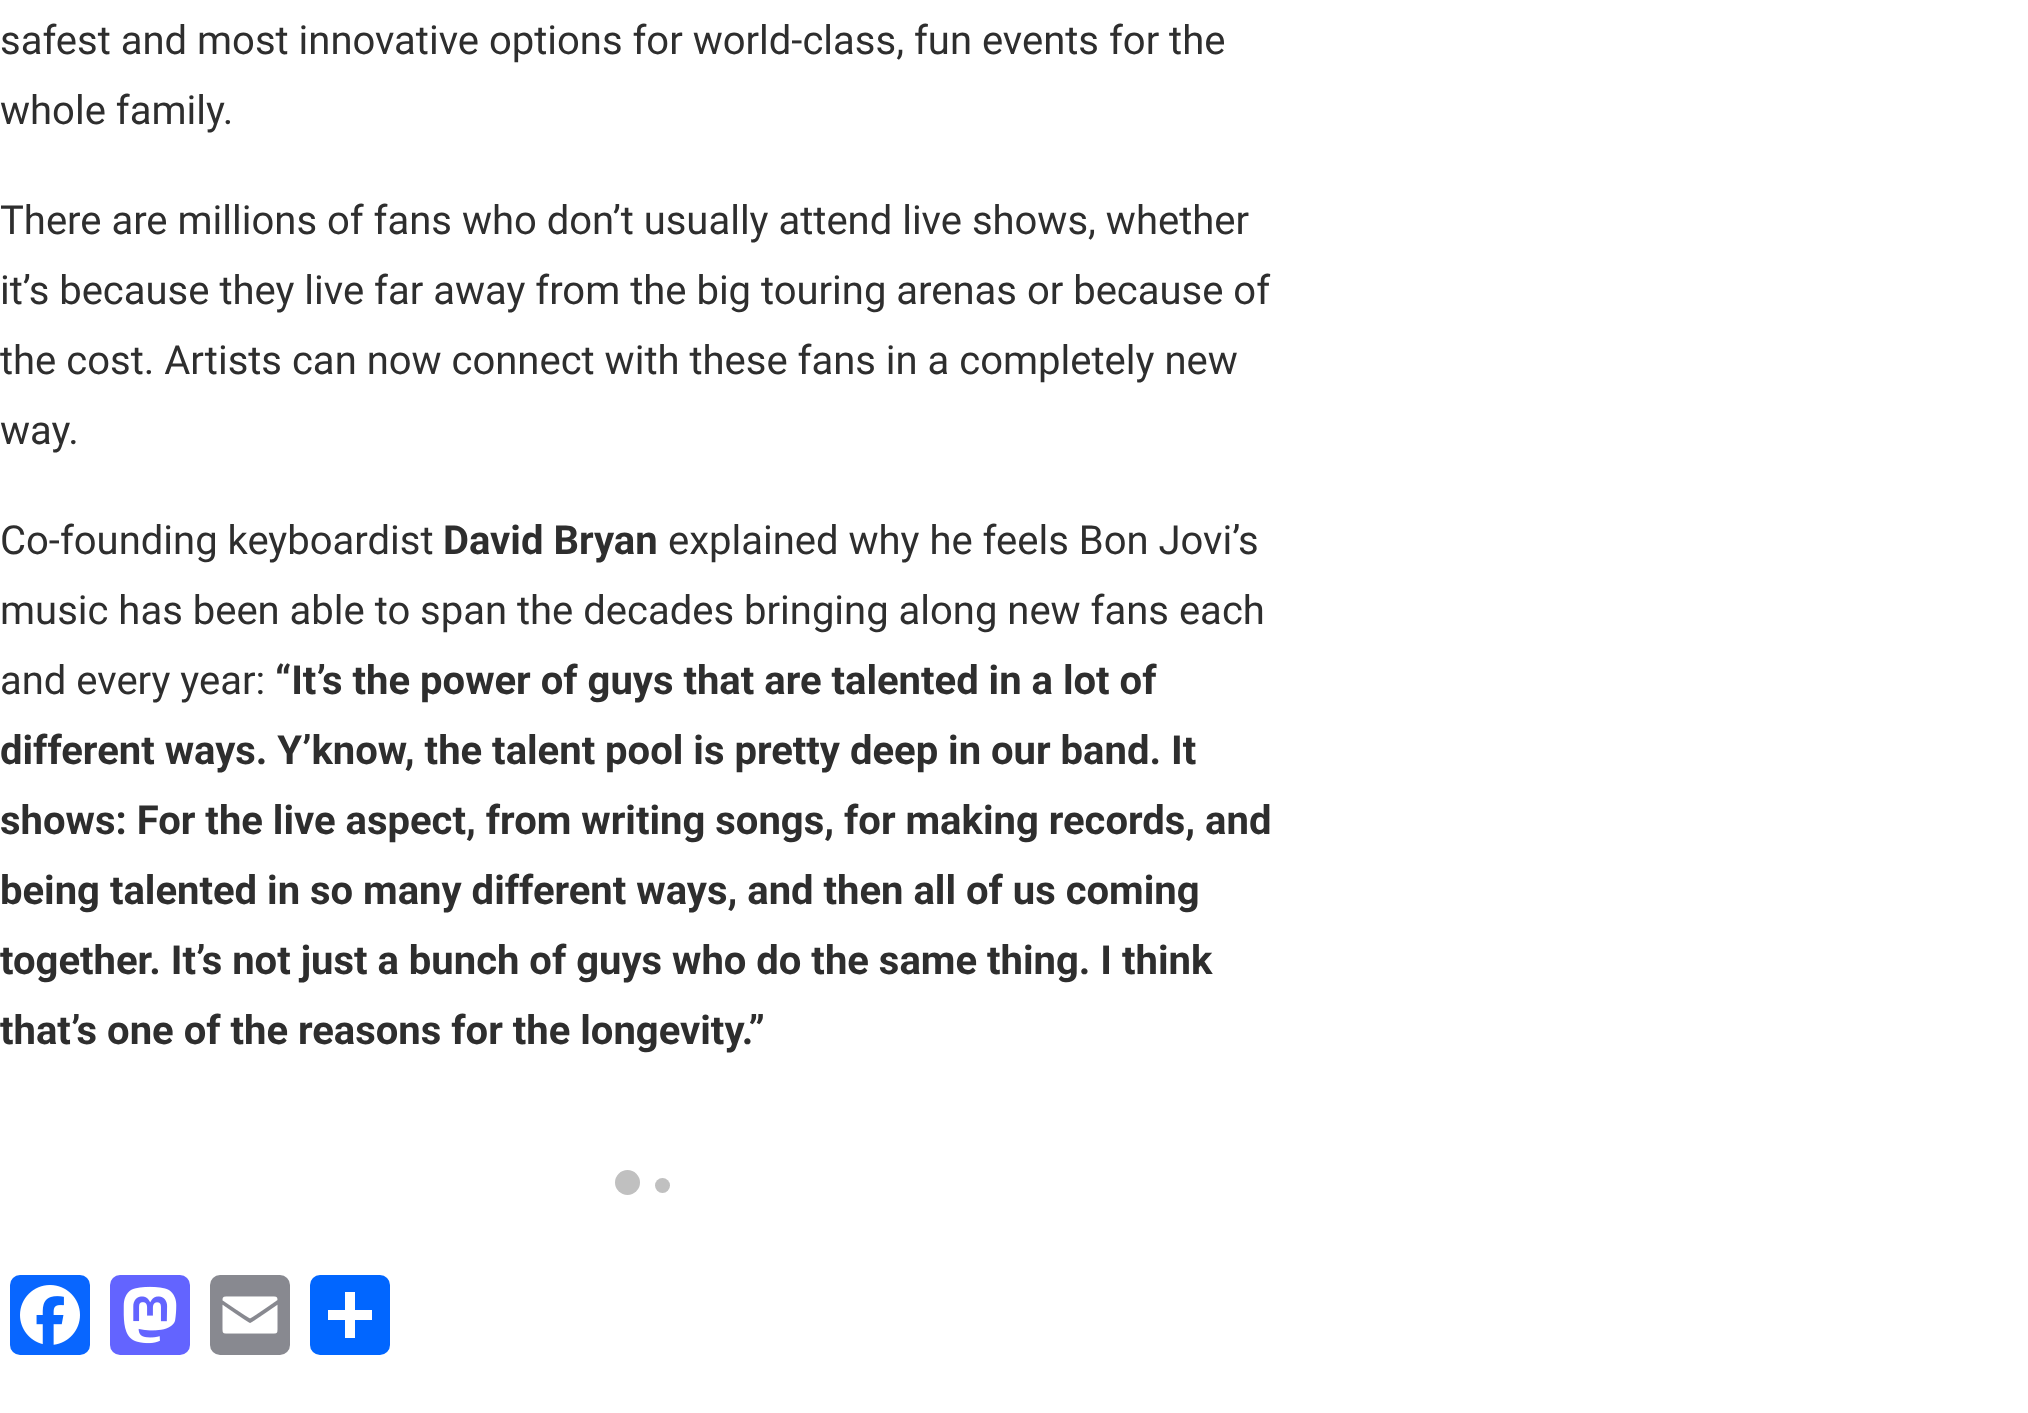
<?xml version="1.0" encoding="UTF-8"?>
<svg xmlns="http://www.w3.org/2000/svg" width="2028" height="1413">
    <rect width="100%" height="100%" fill="#FFFFFF"/>
    <text font-family="Roboto" font-size="40" fill="#2E2E2E">
        <tspan x="0" y="54">safest and most innovative options for world-class, fun events for the</tspan>
        <tspan x="0" y="124">whole family.</tspan>
    </text>
    <text font-family="Roboto" font-size="40" fill="#2E2E2E">
        <tspan x="0" y="234">There are millions of fans who don’t usually attend live shows, whether</tspan>
        <tspan x="0" y="304">it’s because they live far away from the big touring arenas or because of</tspan>
        <tspan x="0" y="374">the cost. Artists can now connect with these fans in a completely new</tspan>
        <tspan x="0" y="444">way.</tspan>
    </text>
    <text x="0" y="554" font-family="Roboto" font-size="40" fill="#2E2E2E">Co-founding keyboardist</text>
    <text x="443" y="554" font-family="Roboto" font-size="40" font-weight="700" fill="#2E2E2E">David Bryan</text>
    <text x="668" y="554" font-family="Roboto" font-size="40" fill="#2E2E2E">explained why he feels Bon Jovi’s</text>
    <text font-family="Roboto" font-size="40" fill="#2E2E2E">
        <tspan x="0" y="624">music has been able to span the decades bringing along new fans each</tspan>
        <tspan x="0" y="694">and every year:</tspan>
    </text>
    <text x="275" y="694" font-family="Roboto" font-size="40" font-weight="700" fill="#2E2E2E">“It’s the power of guys that are talented in a lot of</text>
    <text font-family="Roboto" font-size="40" font-weight="700" fill="#2E2E2E">
        <tspan x="0" y="764">different ways. Y’know, the talent pool is pretty deep in our band. It</tspan>
        <tspan x="0" y="834">shows: For the live aspect, from writing songs, for making records, and</tspan>
        <tspan x="0" y="904">being talented in so many different ways, and then all of us coming</tspan>
        <tspan x="0" y="974">together. It’s not just a bunch of guys who do the same thing. I think</tspan>
        <tspan x="0" y="1044">that’s one of the reasons for the longevity.”</tspan>
    </text>
    <circle cx="627.5" cy="1182.5" r="12.5" fill="#C0C0C0"/>
    <circle cx="662.5" cy="1185.5" r="7.5" fill="#C0C0C0"/>
    <rect x="10" y="1275" width="80" height="80" rx="10" fill="#0866FF"/>
    <image x="20" y="1285" width="60" height="60" href="img_01.png"/>
    <rect x="110" y="1275" width="80" height="80" rx="10" fill="#6364FF"/>
    <image x="123" y="1286" width="54" height="58" href="img_02.png"/>
    <rect x="210" y="1275" width="80" height="80" rx="10" fill="#888990"/>
    <image x="222" y="1296" width="56" height="38" href="img_03.png"/>
    <rect x="310" y="1275" width="80" height="80" rx="10" fill="#0166FF"/>
    <rect x="345" y="1292" width="10" height="46" fill="#FFFFFF"/>
    <rect x="328" y="1310" width="44" height="10" fill="#FFFFFF"/>
</svg>
